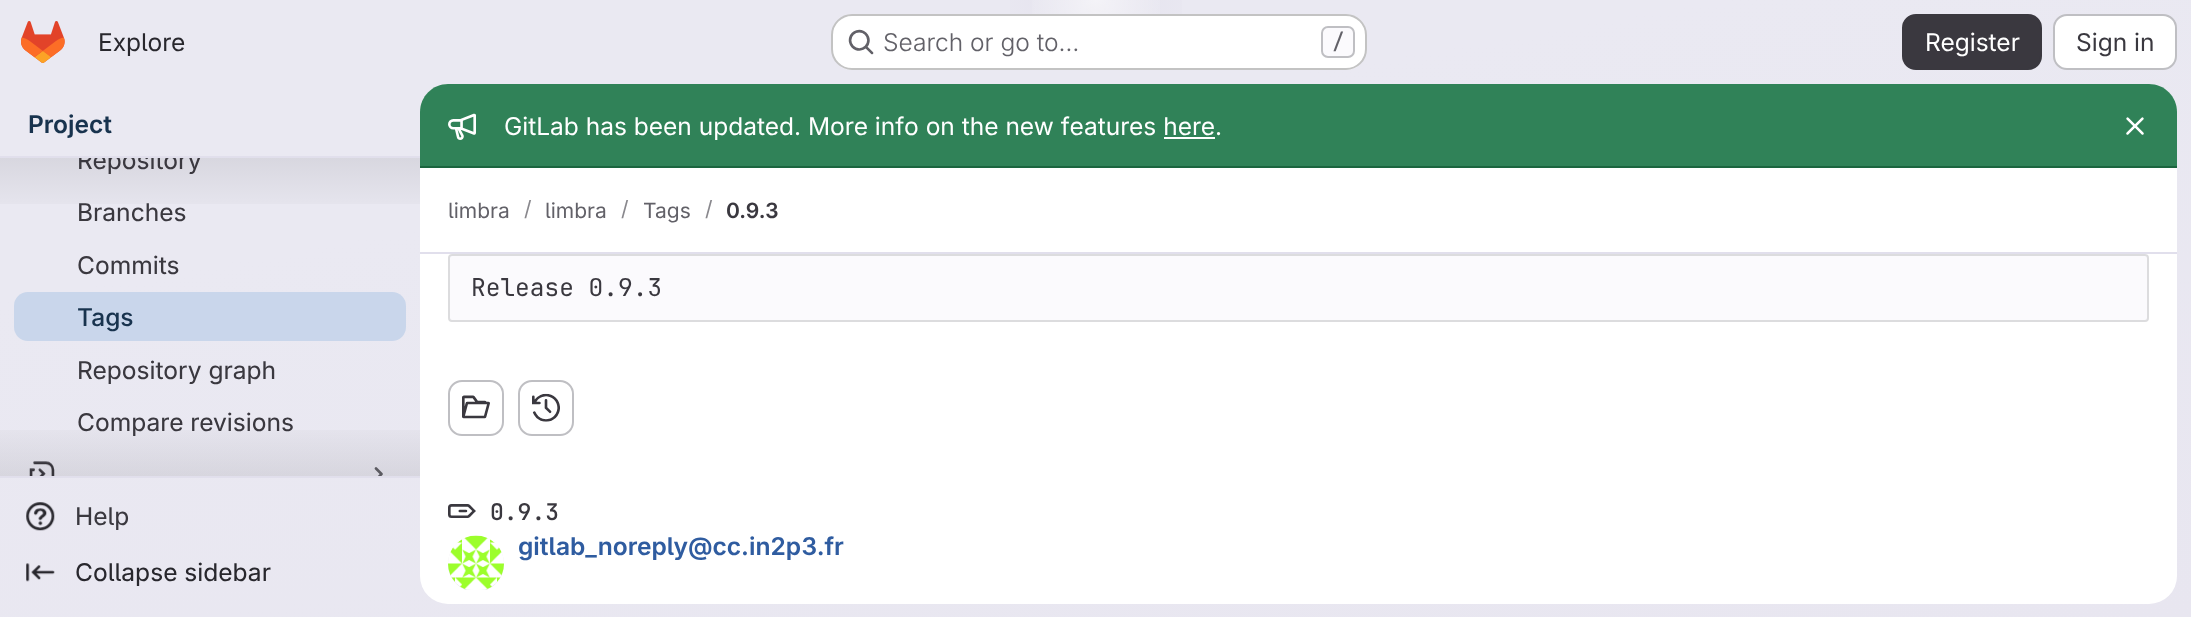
<?xml version="1.0" encoding="UTF-8"?>
<svg xmlns="http://www.w3.org/2000/svg" width="2191" height="617">
    <defs>
        <linearGradient id="g1" gradientUnits="userSpaceOnUse" x1="1181" y1="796" x2="1010" y2="-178"><stop offset="0" stop-color="#E8E6F0"/><stop offset="0.7" stop-color="#EAE9F2"/></linearGradient>
        <radialGradient id="g2" gradientUnits="userSpaceOnUse" cx="0" cy="0" r="1" gradientTransform="matrix(1096 0 0 618 1096 0)"><stop offset="0" stop-color="#E4E2ED"/><stop offset="0.11" stop-color="#E4E2ED" stop-opacity="0"/></radialGradient>
        <radialGradient id="g3" gradientUnits="userSpaceOnUse" cx="0" cy="0" r="1" gradientTransform="matrix(1096 0 0 618 1096 0)"><stop offset="0" stop-color="#E4E2EC"/><stop offset="0.08" stop-color="#E4E2EC" stop-opacity="0"/></radialGradient>
        <radialGradient id="g4" gradientUnits="userSpaceOnUse" cx="1096" cy="0" r="1258"><stop offset="0" stop-color="#FFFFFF" stop-opacity="0.6"/><stop offset="0.06" stop-color="#FFFFFF" stop-opacity="0"/></radialGradient>
        <linearGradient id="g5" gradientUnits="userSpaceOnUse" x1="210" y1="157" x2="210" y2="221"><stop offset="0" stop-color="#050506" stop-opacity="0.08"/><stop offset="1" stop-color="#050506" stop-opacity="0"/></linearGradient>
        <clipPath id="clip1"><rect x="0" y="158" width="420" height="318"/></clipPath>
        <clipPath id="clip2"><rect x="364" y="460" width="28" height="16"/></clipPath>
        <linearGradient id="g6" gradientUnits="userSpaceOnUse" x1="210" y1="413" x2="210" y2="476"><stop offset="0" stop-color="#050506" stop-opacity="0"/><stop offset="1" stop-color="#050506" stop-opacity="0.08"/></linearGradient>
        <clipPath id="clip3"><rect x="420" y="254" width="1757" height="336"/></clipPath>
    </defs>
    <rect width="100%" height="100%" fill="#FFFFFF"/>
    <rect x="0" y="0" width="2191" height="617" fill="url(#g1)"/>
    <rect x="1010" y="0" width="172" height="14" fill="url(#g2)"/>
    <rect x="1086" y="4" width="20" height="8" fill="url(#g3)"/>
    <rect x="1032" y="0" width="128" height="60" fill="url(#g4)"/>
    <image x="21" y="21" width="44" height="42" href="img_01.png"/>
    <text x="98" y="51" font-family="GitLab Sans" font-size="24.5" fill="#28272D">Explore</text>
    <rect x="831" y="14" width="536" height="56" rx="21" fill="#FFFFFF"/>
    <rect x="832" y="15" width="534" height="54" rx="20" fill="none" stroke="#050506" stroke-opacity="0.24" stroke-width="2"/>
    <image x="848" y="29" width="26" height="26" href="img_02.png"/>
    <text x="883" y="51" font-family="GitLab Sans" font-size="24.5" font-weight="300" fill="#626168">Search or go to…</text>
    <rect x="1322" y="27" width="32" height="30" rx="6" fill="#FBFAFD" stroke="#BFBFC3" stroke-width="2"/>
    <text x="1332" y="49" font-family="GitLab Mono" font-size="21" font-weight="500" fill="#626168">/</text>
    <rect x="1903" y="15" width="138" height="54" rx="13" fill="#3A383F" stroke="#3A383F" stroke-width="2"/>
    <text x="1925" y="51" font-family="GitLab Sans" font-size="24.5" fill="#FFFFFF">Register</text>
    <rect x="2054" y="15" width="122" height="54" rx="13" fill="#FFFFFF" stroke="#BFBFC3" stroke-width="2"/>
    <text x="2076" y="51" font-family="GitLab Sans" font-size="24.5" fill="#3A383F">Sign in</text>
    <text x="28" y="133" font-family="GitLab Sans" font-size="24.5" font-weight="600" fill="#18334E">Project</text>
    <rect x="0" y="156" width="420" height="2" fill="#E1DFEC"/>
    <rect x="0" y="476" width="420" height="2" fill="#E1DFEC"/>
    <rect x="0" y="158" width="420" height="46" fill="url(#g5)"/>
    <g clip-path="url(#clip1)">
        <text x="77" y="169" font-family="'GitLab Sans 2'" font-size="24.5" fill="#3A383F">Repository</text>
    </g>
    <text x="77" y="221" font-family="'GitLab Sans 2'" font-size="24.5" fill="#3A383F">Branches</text>
    <text x="77" y="274" font-family="'GitLab Sans 2'" font-size="24.5" fill="#3A383F">Commits</text>
    <rect x="14" y="292" width="392" height="49" rx="14" fill="#C9D6EB"/>
    <text x="77" y="326" font-family="GitLab Sans" font-size="24.5" font-weight="500" fill="#18334E">Tags</text>
    <text x="77" y="379" font-family="'GitLab Sans 2'" font-size="24.5" fill="#3A383F">Repository graph</text>
    <text x="77" y="431" font-family="'GitLab Sans 2'" font-size="24.5" fill="#3A383F">Compare revisions</text>
    <image x="29" y="461" width="26" height="15" href="img_03.png"/>
    <g clip-path="url(#clip2)">
        <path d="M 376 468.5 L 381.5 474 L 376 480" fill="none" stroke="#626168" stroke-width="2.6" stroke-linecap="round" stroke-linejoin="round"/>
    </g>
    <rect x="0" y="430" width="420" height="46" fill="url(#g6)"/>
    <image x="26" y="502" width="29" height="29" href="img_04.png"/>
    <text x="75" y="525" font-family="'GitLab Sans 2'" font-size="24.5" fill="#3A383F">Help</text>
    <image x="26" y="563" width="29" height="19" href="img_05.png"/>
    <text x="75" y="581" font-family="'GitLab Sans 2'" font-size="24.5" fill="#28272D">Collapse sidebar</text>
    <rect x="420" y="84" width="1757" height="520" rx="28" fill="#FFFFFF"/>
    <path d="M 448 84 H 2149 C 2164.5 84 2177 96.5 2177 112 V 168 H 420 V 112 C 420 96.5 432.5 84 448 84 Z" fill="#308258"/>
    <rect x="420" y="166" width="1757" height="2" fill="#1B653F"/>
    <image x="448" y="113" width="28" height="27" href="img_06.png"/>
    <text x="504" y="135" font-family="GitLab Sans" font-size="24.5" fill="#FFFFFF">GitLab has been updated. More info on the new features here.</text>
    <rect x="1164" y="137" width="51" height="2" fill="#FFFFFF"/>
    <image x="2126" y="117" width="18" height="18" href="img_07.png"/>
    <rect x="420" y="252" width="1757" height="2" fill="#E1DFEC"/>
    <text x="448" y="218" font-family="GitLab Sans" font-size="21" fill="#626168">limbra</text>
    <text x="524" y="216" font-family="GitLab Sans" font-size="21" fill="#89888D">/</text>
    <text x="545" y="218" font-family="GitLab Sans" font-size="21" fill="#626168">limbra</text>
    <text x="621" y="216" font-family="GitLab Sans" font-size="21" fill="#89888D">/</text>
    <text x="643" y="218" font-family="GitLab Sans" font-size="21" fill="#626168">Tags</text>
    <text x="705" y="216" font-family="GitLab Sans" font-size="21" fill="#89888D">/</text>
    <text x="726" y="218" font-family="GitLab Sans" font-size="21" font-weight="600" fill="#3A383F">0.9.3</text>
    <rect x="449" y="255" width="1699" height="66" rx="3" fill="#FBFAFD" stroke="#DCDCDE" stroke-width="2"/>
    <text x="471" y="296" font-family="GitLab Mono" font-size="24.5" fill="#3A383F">Release 0.9.3</text>
    <rect x="449" y="381" width="54" height="54" rx="13" fill="none" stroke="#BFBFC3" stroke-width="2"/>
    <image x="462" y="395" width="28" height="24" href="img_08.png"/>
    <rect x="519" y="381" width="54" height="54" rx="13" fill="none" stroke="#BFBFC3" stroke-width="2"/>
    <image x="532" y="393" width="28" height="29" href="img_09.png"/>
    <image x="448" y="504" width="28" height="14" href="img_10.png"/>
    <text x="490" y="520" font-family="GitLab Mono" font-size="23" font-weight="600" fill="#3A383F">0.9.3</text>
    <g clip-path="url(#clip3)">
        <circle cx="476" cy="564" r="27" fill="none" stroke="#E8E7E9" stroke-width="2"/>
    </g>
    <image x="448" y="535" width="56" height="55" href="img_11.png"/>
    <text x="518" y="555" font-family="GitLab Sans" font-size="24.5" font-weight="600" fill="#2F5CA0">gitlab_noreply@cc.in2p3.fr</text>
</svg>
